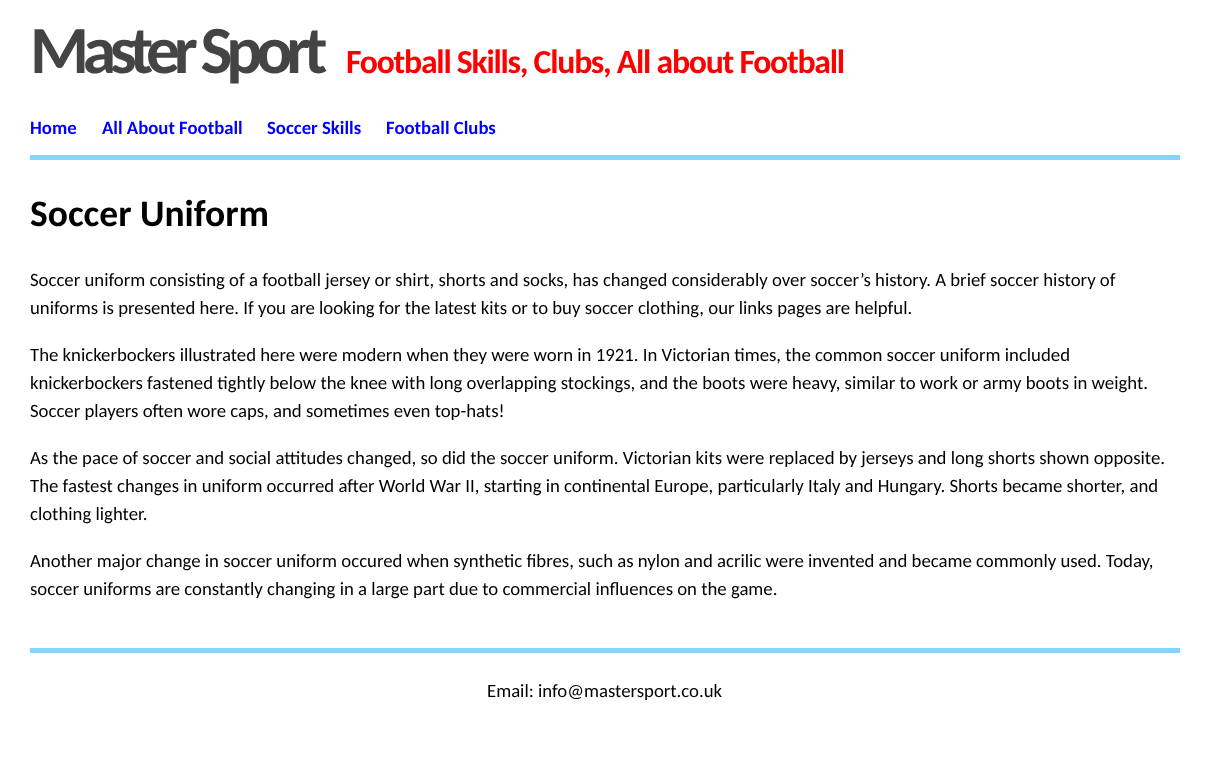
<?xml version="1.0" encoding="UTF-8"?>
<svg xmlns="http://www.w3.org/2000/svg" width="1210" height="771">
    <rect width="100%" height="100%" fill="#FFFFFF"/>
    <text x="30" y="73" font-family="Carlito" font-size="67.5" font-weight="700" letter-spacing="-6.25" fill="#444444">Master Sport</text>
    <text x="346" y="73" font-family="Carlito" font-size="33.75" font-weight="700" letter-spacing="-1.25" fill="#FF0000">Football Skills, Clubs, All about Football</text>
    <rect x="30" y="155" width="1150" height="5" fill="#84D6FF"/>
    <text x="30" y="134" font-family="Carlito" font-size="18.75" font-weight="700" fill="#0000FF">Home</text>
    <text x="102" y="134" font-family="Carlito" font-size="18.75" font-weight="700" fill="#0000FF">All About Football</text>
    <text x="267" y="134" font-family="Carlito" font-size="18.75" font-weight="700" fill="#0000FF">Soccer Skills</text>
    <text x="386" y="134" font-family="Carlito" font-size="18.75" font-weight="700" fill="#0000FF">Football Clubs</text>
    <text x="30" y="226" font-family="Carlito" font-size="37.5" font-weight="700" fill="#000000">Soccer Uniform</text>
    <text font-family="Carlito" font-size="18.75" fill="#000000">
        <tspan x="30" y="286">Soccer uniform consisting of a football jersey or shirt, shorts and socks, has changed considerably over soccer’s history. A brief soccer history of</tspan>
        <tspan x="30" y="314">uniforms is presented here. If you are looking for the latest kits or to buy soccer clothing, our links pages are helpful.</tspan>
    </text>
    <text font-family="Carlito" font-size="18.75" fill="#000000">
        <tspan x="30" y="361">The knickerbockers illustrated here were modern when they were worn in 1921. In Victorian times, the common soccer uniform included</tspan>
        <tspan x="30" y="389">knickerbockers fastened tightly below the knee with long overlapping stockings, and the boots were heavy, similar to work or army boots in weight.</tspan>
        <tspan x="30" y="417">Soccer players often wore caps, and sometimes even top-hats!</tspan>
    </text>
    <text font-family="Carlito" font-size="18.75" fill="#000000">
        <tspan x="30" y="464">As the pace of soccer and social attitudes changed, so did the soccer uniform. Victorian kits were replaced by jerseys and long shorts shown opposite.</tspan>
        <tspan x="30" y="492">The fastest changes in uniform occurred after World War II, starting in continental Europe, particularly Italy and Hungary. Shorts became shorter, and</tspan>
        <tspan x="30" y="520">clothing lighter.</tspan>
    </text>
    <text font-family="Carlito" font-size="18.75" fill="#000000">
        <tspan x="30" y="567">Another major change in soccer uniform occured when synthetic fibres, such as nylon and acrilic were invented and became commonly used. Today,</tspan>
        <tspan x="30" y="595">soccer uniforms are constantly changing in a large part due to commercial influences on the game.</tspan>
    </text>
    <rect x="30" y="648" width="1150" height="5" fill="#84D6FF"/>
    <text x="487" y="697" font-family="Carlito" font-size="18.75" fill="#000000">Email: info@mastersport.co.uk</text>
</svg>
